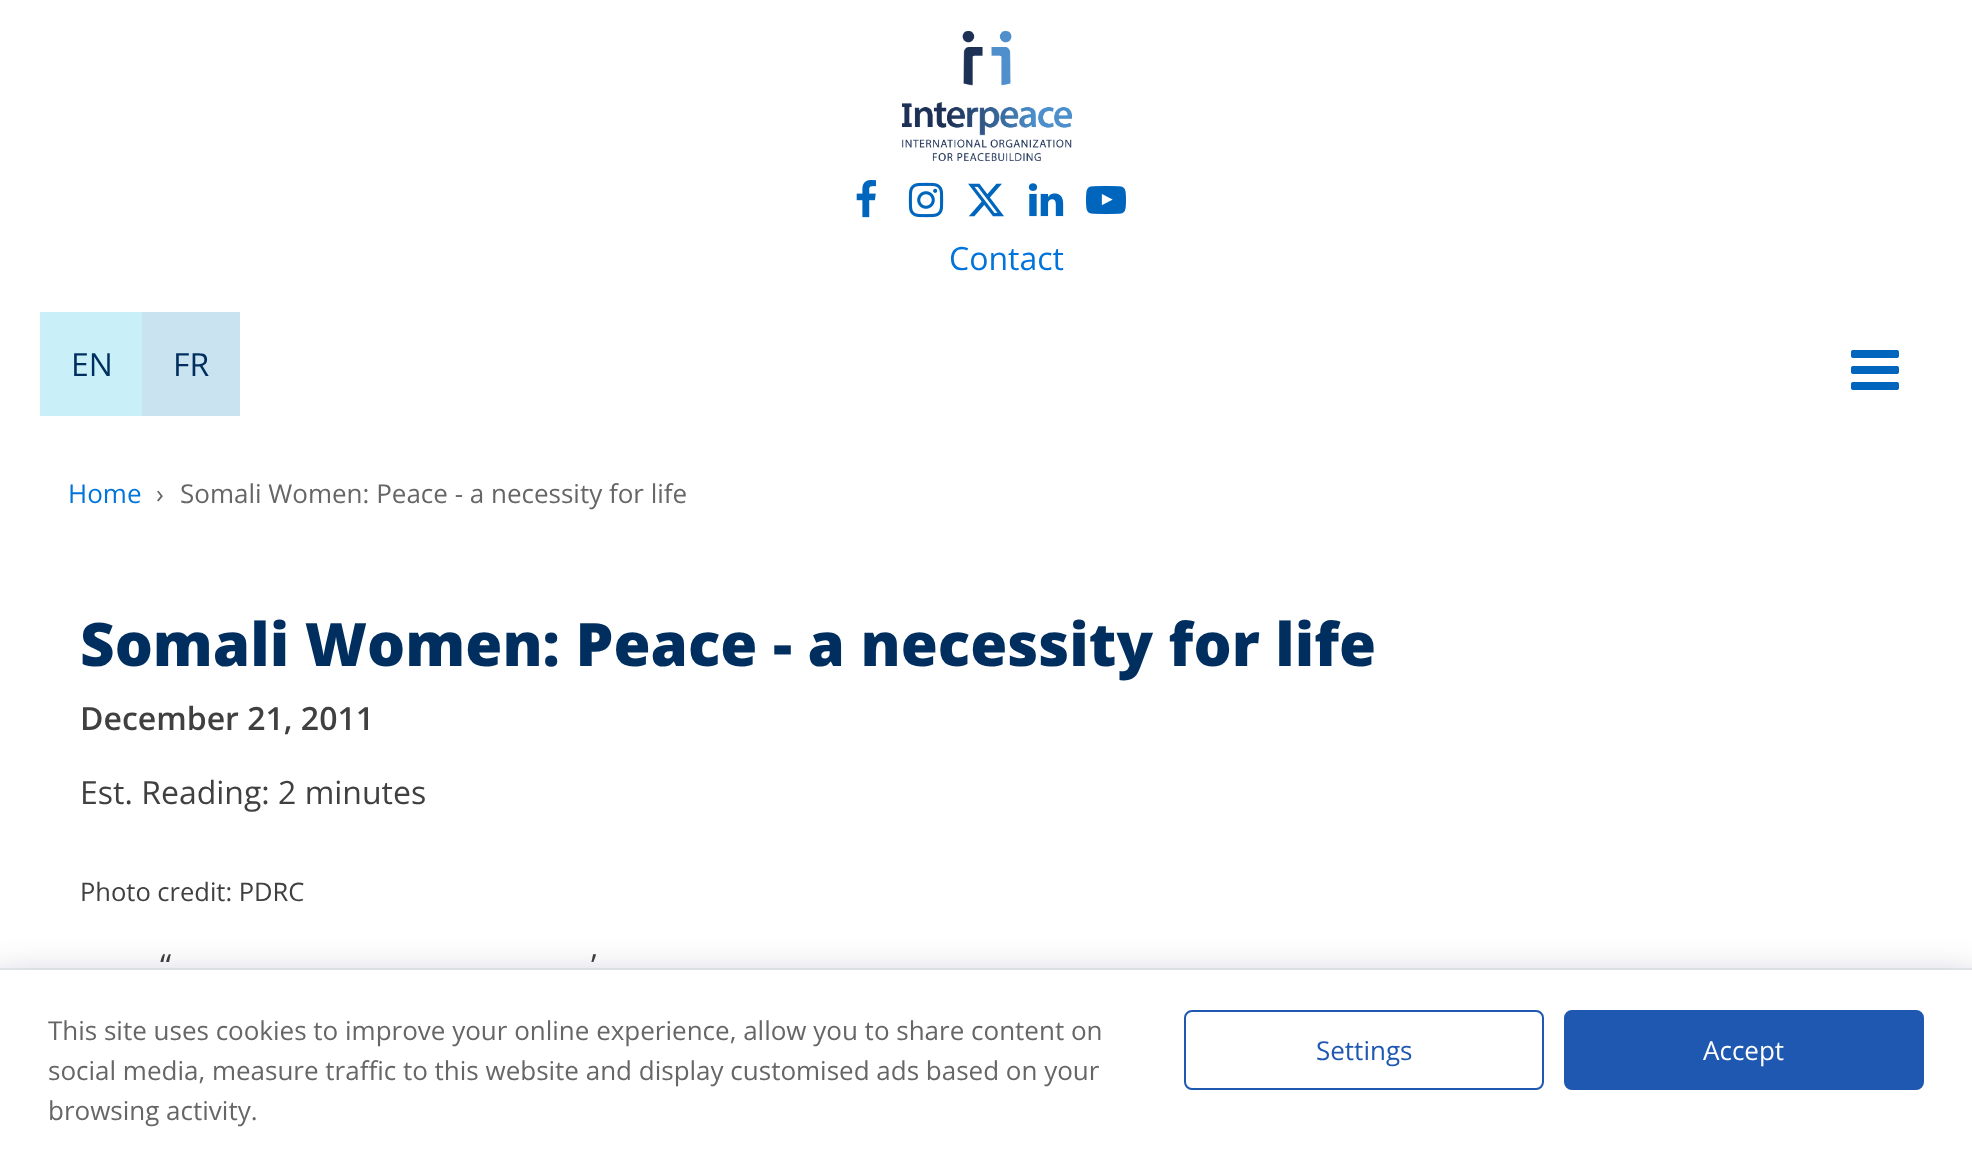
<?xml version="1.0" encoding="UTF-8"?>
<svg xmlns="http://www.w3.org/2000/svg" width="1972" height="1169">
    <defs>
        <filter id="blur1" x="-50%" y="-200%" width="200%" height="500%"><feGaussianBlur stdDeviation="20"/></filter>
    </defs>
    <rect width="100%" height="100%" fill="#FFFFFF"/>
    <image x="902" y="30" width="170" height="131" href="img_01.png"/>
    <image x="856" y="180" width="20" height="38" href="img_02.png"/>
    <image x="908" y="182" width="36" height="36" href="img_03.png"/>
    <image x="968" y="183" width="36" height="34" href="img_04.png"/>
    <image x="1028" y="183" width="36" height="34" href="img_05.png"/>
    <image x="1086" y="185" width="40" height="30" href="img_06.png"/>
    <text x="949" y="270" font-family="Open Sans" font-size="32" fill="#0074DB">Contact</text>
    <rect x="40" y="312" width="102" height="104" fill="#C9F0F8"/>
    <text x="71" y="376" font-family="Open Sans" font-size="32" fill="#002F5F">EN</text>
    <rect x="142" y="312" width="98" height="104" fill="#C9E3F1"/>
    <text x="173" y="376" font-family="Open Sans" font-size="32" fill="#002F5F">FR</text>
    <image x="1851" y="350" width="48" height="40" href="img_07.png"/>
    <text x="68" y="503" font-family="Open Sans" font-size="26" fill="#0074DB">Home</text>
    <text x="156" y="503" font-family="Open Sans" font-size="26" fill="#666666">›</text>
    <text x="180" y="503" font-family="Open Sans" font-size="26" fill="#666666">Somali Women: Peace - a necessity for life</text>
    <text x="80" y="666" font-family="Open Sans" font-size="60" font-weight="800" fill="#002F5F">Somali Women: Peace - a necessity for life</text>
    <text x="80" y="730" font-family="Open Sans" font-size="32" font-weight="600" fill="#404040">December 21, 2011</text>
    <text x="80" y="804" font-family="Open Sans" font-size="32" fill="#404040">Est. Reading: 2 minutes</text>
    <text x="80" y="901" font-family="Open Sans" font-size="25.5" fill="#404040">Photo credit: PDRC</text>
    <text x="160" y="977" font-family="Open Sans" font-size="32" fill="#404040">“</text>
    <text x="591" y="977" font-family="Open Sans" font-size="32" fill="#404040">’</text>
    <rect x="-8" y="982" width="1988" height="176" fill="#242F42" fill-opacity="0.31" filter="url(#blur1)"/>
    <rect x="-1" y="969" width="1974" height="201" fill="none" stroke="#242F42" stroke-opacity="0.08" stroke-width="2"/>
    <rect x="0" y="970" width="1972" height="199" fill="#FFFFFF"/>
    <text font-family="Open Sans" font-size="26" fill="#666666">
        <tspan x="48" y="1040">This site uses cookies to improve your online experience, allow you to share content on</tspan>
        <tspan x="48" y="1080">social media, measure traffic to this website and display customised ads based on your</tspan>
        <tspan x="48" y="1120">browsing activity.</tspan>
    </text>
    <rect x="1185" y="1011" width="358" height="78" rx="7" fill="none" stroke="#1E58B1" stroke-width="2"/>
    <text x="1316" y="1060" font-family="Open Sans" font-size="26" fill="#1E58B1">Settings</text>
    <rect x="1565" y="1011" width="358" height="78" rx="7" fill="#1E58B1" stroke="#1E58B1" stroke-width="2"/>
    <text x="1703" y="1060" font-family="Open Sans" font-size="26" fill="#FFFFFF">Accept</text>
</svg>
